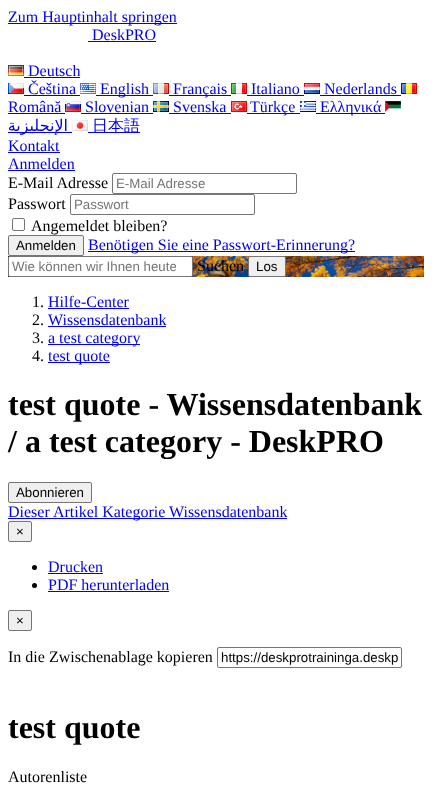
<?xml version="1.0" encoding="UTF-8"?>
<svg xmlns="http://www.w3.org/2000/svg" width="432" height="793">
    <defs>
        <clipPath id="clip1"><rect x="12" y="259" width="164" height="15"/></clipPath>
    </defs>
    <rect width="100%" height="100%" fill="#FFFFFF"/>
    <rect x="8" y="23" width="169" height="1" fill="#0000EE"/>
    <text x="8" y="22" font-family="Liberation Serif" font-size="16" fill="#0000EE">Zum Hauptinhalt springen</text>
    <text x="92" y="40" font-family="Liberation Serif" font-size="16" fill="#0000EE">DeskPRO</text>
    <rect x="88" y="41" width="68" height="1" fill="#0000EE"/>
    <image x="8" y="65" width="16" height="11" href="img_01.png"/>
    <text x="28" y="76" font-family="Liberation Serif" font-size="16" fill="#0000EE">Deutsch</text>
    <rect x="24" y="77" width="56" height="1" fill="#0000EE"/>
    <image x="8" y="83" width="16" height="11" href="img_02.png"/>
    <text x="28" y="94" font-family="Liberation Serif" font-size="16" fill="#0000EE">Čeština</text>
    <rect x="24" y="95" width="56" height="1" fill="#0000EE"/>
    <image x="80" y="83" width="16" height="11" href="img_03.png"/>
    <rect x="96" y="95" width="57" height="1" fill="#0000EE"/>
    <text x="100" y="94" font-family="Liberation Serif" font-size="16" fill="#0000EE">English</text>
    <image x="153" y="83" width="16" height="11" href="img_04.png"/>
    <rect x="169" y="95" width="62" height="1" fill="#0000EE"/>
    <text x="173" y="94" font-family="Liberation Serif" font-size="16" fill="#0000EE">Français</text>
    <image x="231" y="83" width="16" height="11" href="img_05.png"/>
    <text x="251" y="94" font-family="Liberation Serif" font-size="16" fill="#0000EE">Italiano</text>
    <rect x="247" y="95" width="57" height="1" fill="#0000EE"/>
    <image x="304" y="83" width="16" height="11" href="img_06.png"/>
    <text x="324" y="94" font-family="Liberation Serif" font-size="16" fill="#0000EE">Nederlands</text>
    <rect x="320" y="95" width="81" height="1" fill="#0000EE"/>
    <image x="401" y="83" width="16" height="11" href="img_07.png"/>
    <text x="8" y="112" font-family="Liberation Serif" font-size="16" fill="#0000EE">Română</text>
    <rect x="8" y="113" width="57" height="1" fill="#0000EE"/>
    <image x="65" y="101" width="16" height="11" href="img_08.png"/>
    <text x="85" y="112" font-family="Liberation Serif" font-size="16" fill="#0000EE">Slovenian</text>
    <rect x="81" y="113" width="72" height="1" fill="#0000EE"/>
    <image x="153" y="101" width="16" height="11" href="img_09.png"/>
    <text x="173" y="112" font-family="Liberation Serif" font-size="16" fill="#0000EE">Svenska</text>
    <rect x="169" y="113" width="62" height="1" fill="#0000EE"/>
    <image x="231" y="101" width="16" height="11" href="img_10.png"/>
    <rect x="247" y="113" width="53" height="1" fill="#0000EE"/>
    <text x="250" y="112" font-family="Liberation Serif" font-size="16" fill="#0000EE">Türkçe</text>
    <image x="300" y="101" width="16" height="11" href="img_11.png"/>
    <rect x="316" y="113" width="69" height="1" fill="#0000EE"/>
    <text x="320" y="112" font-family="Liberation Serif" font-size="16" fill="#0000EE">Ελληνικά</text>
    <image x="385" y="101" width="16" height="11" href="img_12.png"/>
    <rect x="8" y="132" width="64" height="1" fill="#0000EE"/>
    <text x="68" y="131" font-family="DejaVu Sans" font-size="16" direction="rtl" fill="#0000EE">الإنجليزية</text>
    <image x="72" y="120" width="16" height="11" href="img_13.png"/>
    <rect x="88" y="132" width="52" height="1" fill="#0000EE"/>
    <text x="92" y="131" font-family="WenQuanYi Zen Hei" font-size="16" font-weight="500" fill="#0000EE">日本語</text>
    <text x="8" y="151" font-family="Liberation Serif" font-size="16" fill="#0000EE">Kontakt</text>
    <rect x="8" y="152" width="52" height="1" fill="#0000EE"/>
    <text x="8" y="169" font-family="Liberation Serif" font-size="16" fill="#0000EE">Anmelden</text>
    <rect x="8" y="170" width="67" height="1" fill="#0000EE"/>
    <text x="8" y="188" font-family="Liberation Serif" font-size="16" fill="#000000">E-Mail Adresse</text>
    <rect x="112.5" y="173.5" width="184" height="20" rx="1.5" fill="none" stroke="#767676"/>
    <text x="116" y="188" font-family="Liberation Sans" font-size="13.3" fill="#757575">E-Mail Adresse</text>
    <text x="8" y="209" font-family="Liberation Serif" font-size="16" fill="#000000">Passwort</text>
    <rect x="70.5" y="194.5" width="184" height="20" rx="1.5" fill="none" stroke="#767676"/>
    <text x="74" y="209" font-family="Liberation Sans" font-size="13.3" fill="#757575">Passwort</text>
    <rect x="12.5" y="218.5" width="12" height="12" rx="1.5" fill="none" stroke="#767676"/>
    <text x="31" y="231" font-family="Liberation Serif" font-size="16" fill="#000000">Angemeldet bleiben?</text>
    <rect x="8.5" y="235.5" width="75" height="20" rx="1.5" fill="#EFEFEF" stroke="#767676"/>
    <text x="16" y="250" font-family="Liberation Sans" font-size="13.3" fill="#000000">Anmelden</text>
    <rect x="88" y="251" width="267" height="1" fill="#0000EE"/>
    <text x="88" y="250" font-family="Liberation Serif" font-size="16" fill="#0000EE">Benötigen Sie eine Passwort-Erinnerung?</text>
    <image x="8" y="256" width="416" height="21" href="img_14.png"/>
    <rect x="8.5" y="256.5" width="184" height="20" rx="1.5" fill="#FFFFFF" stroke="#767676"/>
    <g clip-path="url(#clip1)">
        <text x="12" y="271" font-family="Liberation Sans" font-size="13.3" fill="#757575">Wie können wir Ihnen heute</text>
    </g>
    <text x="197" y="271" font-family="Liberation Serif" font-size="16" fill="#000000">Suchen</text>
    <rect x="248.5" y="256.5" width="37" height="20" rx="1.5" fill="#EFEFEF" stroke="#767676"/>
    <text x="256" y="271" font-family="Liberation Sans" font-size="13.3" fill="#000000">Los</text>
    <text x="32" y="307" font-family="Liberation Serif" font-size="16" fill="#000000">1.</text>
    <text x="48" y="307" font-family="Liberation Serif" font-size="16" fill="#0000EE">Hilfe-Center</text>
    <rect x="48" y="308" width="81" height="1" fill="#0000EE"/>
    <text x="32" y="325" font-family="Liberation Serif" font-size="16" fill="#000000">2.</text>
    <text x="48" y="325" font-family="Liberation Serif" font-size="16" fill="#0000EE">Wissensdatenbank</text>
    <rect x="48" y="326" width="118" height="1" fill="#0000EE"/>
    <text x="32" y="343" font-family="Liberation Serif" font-size="16" fill="#000000">3.</text>
    <rect x="48" y="344" width="92" height="1" fill="#0000EE"/>
    <text x="48" y="343" font-family="Liberation Serif" font-size="16" fill="#0000EE">a test category</text>
    <text x="32" y="361" font-family="Liberation Serif" font-size="16" fill="#000000">4.</text>
    <rect x="48" y="362" width="62" height="1" fill="#0000EE"/>
    <text x="48" y="361" font-family="Liberation Serif" font-size="16" fill="#0000EE">test quote</text>
    <text font-family="Liberation Serif" font-size="32" font-weight="700" fill="#000000">
        <tspan x="8" y="415">test quote - Wissensdatenbank</tspan>
        <tspan x="8" y="452">/ a test category - DeskPRO</tspan>
    </text>
    <rect x="8.5" y="482.5" width="83" height="20" rx="1.5" fill="#EFEFEF" stroke="#767676"/>
    <text x="16" y="497" font-family="Liberation Sans" font-size="13.3" fill="#000000">Abonnieren</text>
    <rect x="8" y="518" width="279" height="1" fill="#0000EE"/>
    <text x="8" y="517" font-family="Liberation Serif" font-size="16" fill="#0000EE">Dieser Artikel Kategorie Wissensdatenbank</text>
    <rect x="8.5" y="521.5" width="23" height="20" rx="1.5" fill="#EFEFEF" stroke="#767676"/>
    <text x="16" y="536" font-family="Liberation Sans" font-size="13.3" fill="#000000">×</text>
    <circle cx="34.5" cy="567.5" r="2.5" fill="#000000"/>
    <text x="48" y="572" font-family="Liberation Serif" font-size="16" fill="#0000EE">Drucken</text>
    <rect x="48" y="573" width="55" height="1" fill="#0000EE"/>
    <circle cx="34.5" cy="585.5" r="2.5" fill="#000000"/>
    <text x="48" y="590" font-family="Liberation Serif" font-size="16" fill="#0000EE">PDF herunterladen</text>
    <rect x="48" y="591" width="121" height="1" fill="#0000EE"/>
    <rect x="8.5" y="610.5" width="23" height="20" rx="1.5" fill="#EFEFEF" stroke="#767676"/>
    <text x="16" y="625" font-family="Liberation Sans" font-size="13.3" fill="#000000">×</text>
    <text x="8" y="662" font-family="Liberation Serif" font-size="16" fill="#000000">In die Zwischenablage kopieren</text>
    <rect x="217.5" y="647.5" width="184" height="20" rx="1.5" fill="none" stroke="#767676"/>
    <text x="221" y="662" font-family="Liberation Sans" font-size="13.3" fill="#000000">https://deskprotraininga.deskp</text>
    <text x="8" y="738" font-family="Liberation Serif" font-size="32" font-weight="700" fill="#000000">test quote</text>
    <text x="8" y="782" font-family="Liberation Serif" font-size="16" fill="#000000">Autorenliste</text>
</svg>
